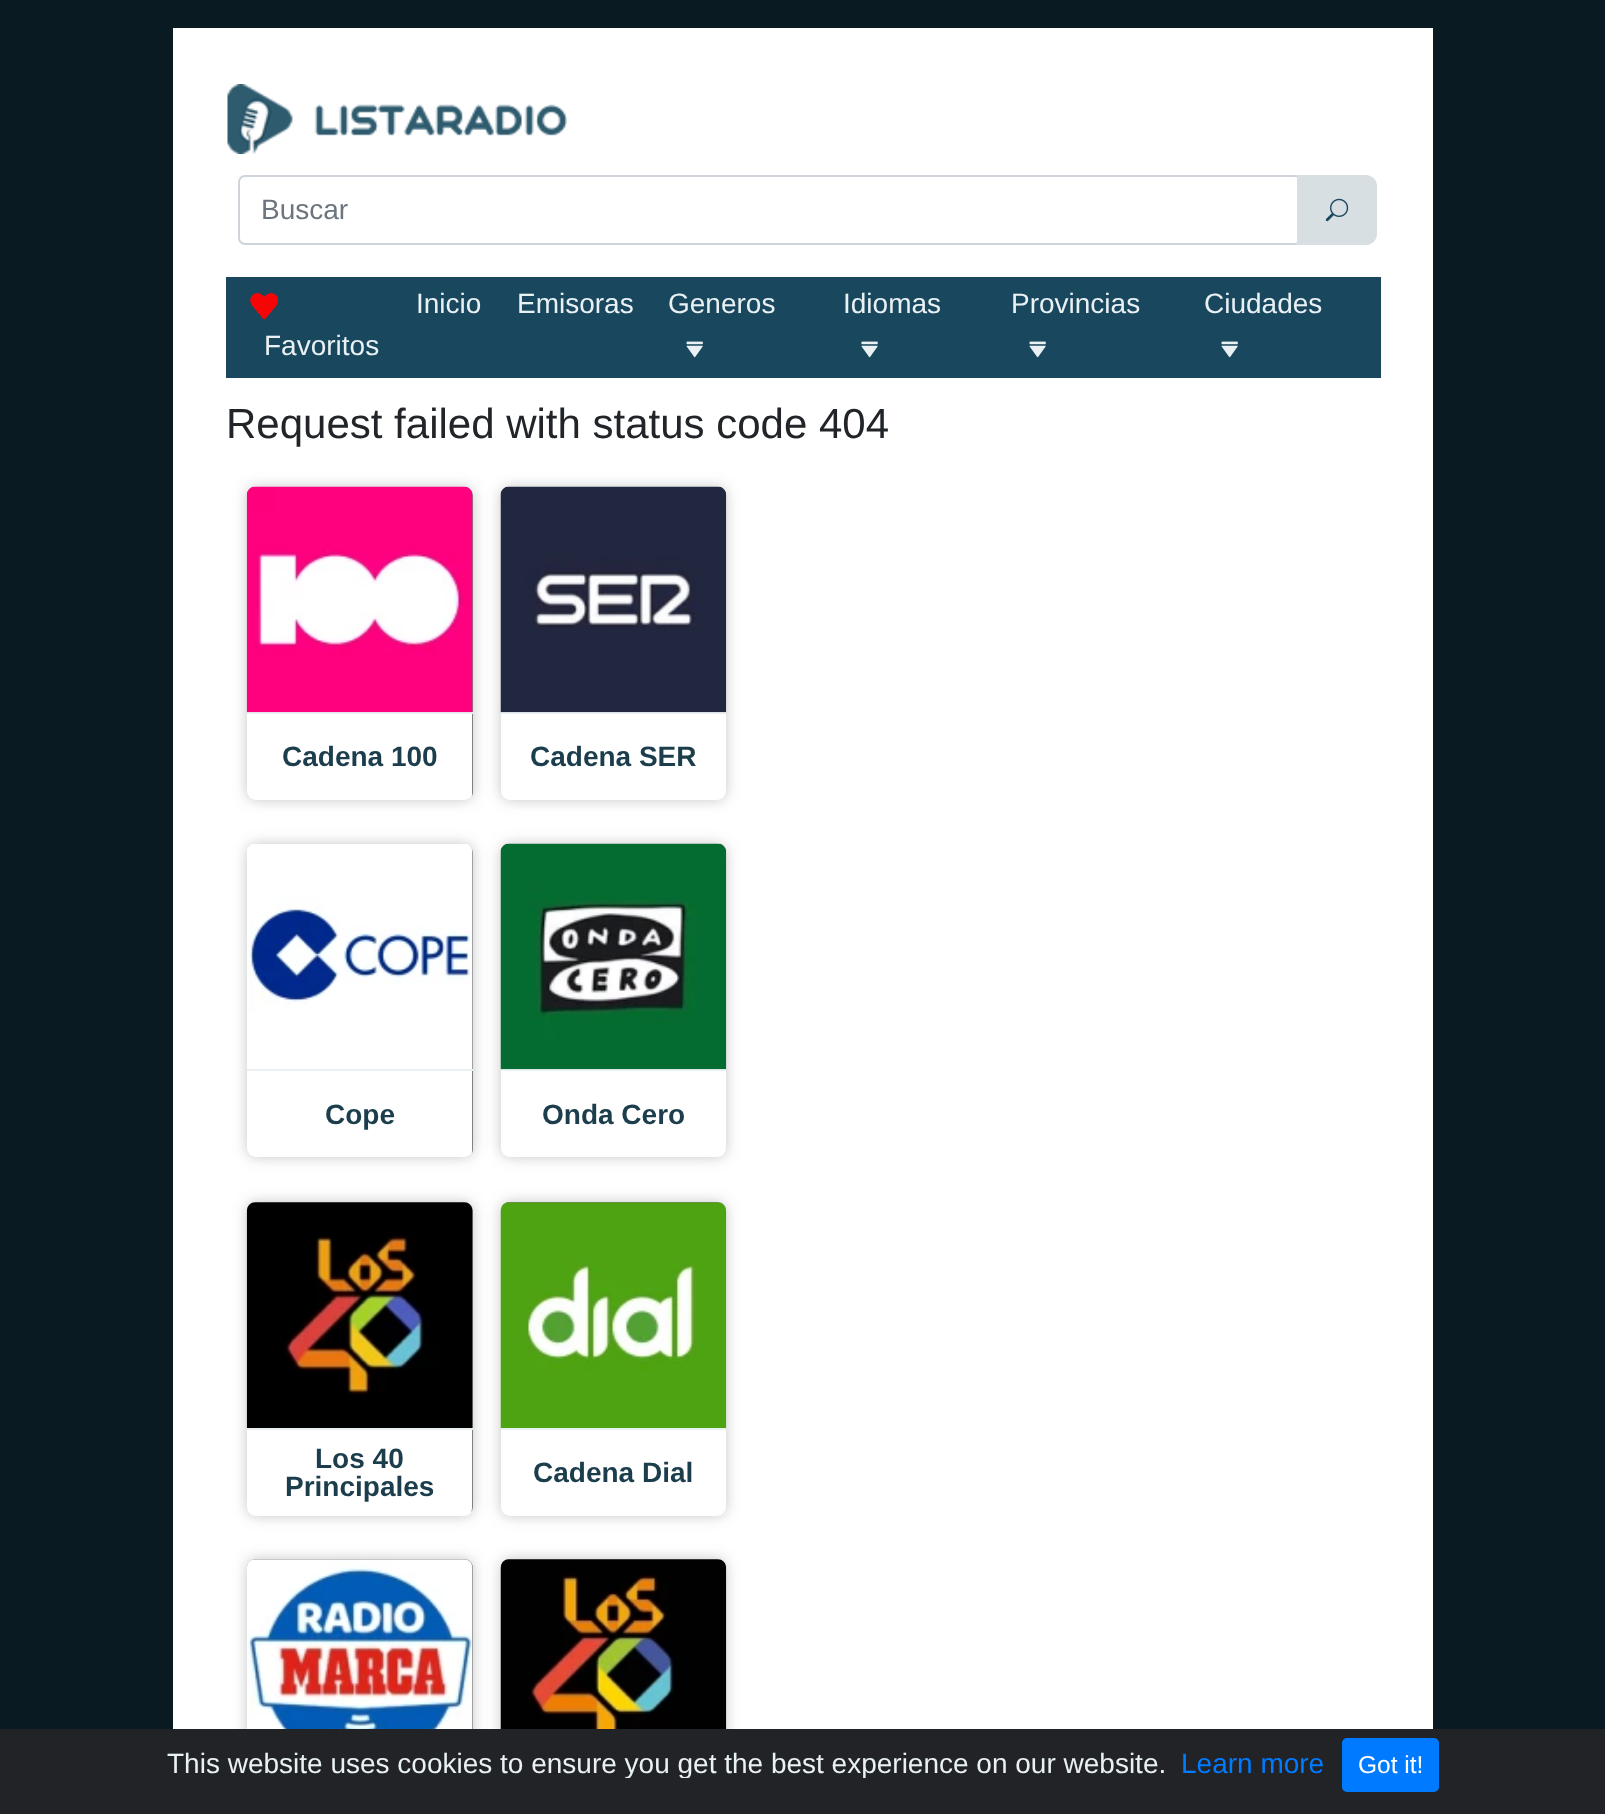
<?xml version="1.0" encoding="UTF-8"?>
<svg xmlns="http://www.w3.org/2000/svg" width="1605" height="1814">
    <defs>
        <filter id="blur1" x="-50%" y="-200%" width="200%" height="500%"><feGaussianBlur stdDeviation="7"/></filter>
        <clipPath id="clip1"><path d="M 326 1071 H 396 V 1150 C 396 1155 392 1159 387 1159 H 335 C 330 1159 326 1155 326 1150 Z"/></clipPath>
        <clipPath id="clip2"><rect x="159" y="1750" width="1166" height="28"/></clipPath>
    </defs>
    <rect width="100%" height="100%" fill="#091A22"/>
    <rect x="173" y="28" width="1260" height="1701" fill="#FFFFFF"/>
    <image x="227" y="84" width="340" height="70" href="img_01.png"/>
    <rect x="239" y="176" width="1062" height="68" rx="6" fill="none" stroke="#CED4DA" stroke-width="2"/>
    <text x="261" y="219" font-family="Liberation Sans" font-size="28" fill="#6C757D">Buscar</text>
    <path d="M 1297 175 H 1366 C 1372 175 1377 180 1377 186 V 234 C 1377 240 1372 245 1366 245 H 1297 Z" fill="#D8DFE2"/>
    <image x="1325" y="198" width="24" height="24" href="img_02.png"/>
    <rect x="226" y="277" width="1155" height="101" fill="#19475D"/>
    <text x="416" y="313" font-family="Liberation Sans" font-size="28" fill="#E9F1F4">Inicio</text>
    <text x="517" y="313" font-family="Liberation Sans" font-size="28" fill="#E9F1F4">Emisoras</text>
    <text x="668" y="313" font-family="Liberation Sans" font-size="28" fill="#E9F1F4">Generos</text>
    <image x="686" y="341" width="17" height="17" href="img_03.png"/>
    <text x="843" y="313" font-family="Liberation Sans" font-size="28" fill="#E9F1F4">Idiomas</text>
    <image x="861" y="341" width="17" height="17" href="img_04.png"/>
    <text x="1011" y="313" font-family="Liberation Sans" font-size="28" fill="#E9F1F4">Provincias</text>
    <image x="1029" y="341" width="17" height="17" href="img_05.png"/>
    <text x="1204" y="313" font-family="Liberation Sans" font-size="28" fill="#E9F1F4">Ciudades</text>
    <image x="1221" y="341" width="17" height="17" href="img_06.png"/>
    <image x="250" y="293" width="28" height="27" href="img_07.png"/>
    <text x="264" y="355" font-family="Liberation Sans" font-size="28" fill="#E9F1F4">Favoritos</text>
    <text x="226" y="438" font-family="Liberation Sans" font-size="42" fill="#212529">Request failed with status code 404</text>
    <rect x="247" y="487" width="226" height="313" rx="9" fill="#808080" fill-opacity="0.45" filter="url(#blur1)"/>
    <rect x="247" y="487" width="226" height="313" rx="9" fill="#FFFFFF"/>
    <path d="M 255 488 H 464 C 469 488 472 492 472 497 V 796 C 473 794 473 793 473 791 V 496 C 473 491 469 487 464 487 H 256 C 251 487 247 491 247 496 V 497 C 247 492 251 488 255 488 Z" fill="#808080"/>
    <rect x="247" y="712" width="226" height="2" fill="#E9F1F4"/>
    <image x="246" y="486" width="227" height="227" href="img_08.png"/>
    <text x="282" y="766" font-family="Liberation Sans" font-size="28" font-weight="700" fill="#1B3D4C">Cadena 100</text>
    <rect x="501" y="487" width="225" height="313" rx="9" fill="#808080" fill-opacity="0.45" filter="url(#blur1)"/>
    <rect x="501" y="487" width="225" height="313" rx="9" fill="#FFFFFF"/>
    <rect x="501" y="712" width="225" height="2" fill="#E9F1F4"/>
    <image x="500" y="486" width="227" height="227" href="img_09.png"/>
    <text x="530" y="766" font-family="Liberation Sans" font-size="28" font-weight="700" fill="#1B3D4C">Cadena SER</text>
    <rect x="247" y="844" width="226" height="313" rx="9" fill="#808080" fill-opacity="0.45" filter="url(#blur1)"/>
    <rect x="247" y="844" width="226" height="313" rx="9" fill="#FFFFFF"/>
    <path d="M 255 845 H 464 C 469 845 472 849 472 854 V 1153 C 473 1151 473 1150 473 1148 V 853 C 473 848 469 844 464 844 H 256 C 251 844 247 848 247 853 V 854 C 247 849 251 845 255 845 Z" fill="#808080"/>
    <image x="247" y="844" width="226" height="225" href="img_10.png"/>
    <rect x="247" y="1069" width="226" height="2" fill="#E9F1F4"/>
    <g clip-path="url(#clip1)">
        <text x="325" y="1124" font-family="Liberation Sans" font-size="28" font-weight="700" fill="#1B3D4C">Cope</text>
    </g>
    <rect x="501" y="844" width="225" height="313" rx="9" fill="#808080" fill-opacity="0.45" filter="url(#blur1)"/>
    <rect x="501" y="844" width="225" height="313" rx="9" fill="#FFFFFF"/>
    <rect x="501" y="1069" width="225" height="2" fill="#E9F1F4"/>
    <image x="500" y="843" width="227" height="227" href="img_11.png"/>
    <text x="542" y="1124" font-family="Liberation Sans" font-size="28" font-weight="700" fill="#1B3D4C">Onda Cero</text>
    <rect x="247" y="1202" width="226" height="314" rx="9" fill="#808080" fill-opacity="0.45" filter="url(#blur1)"/>
    <rect x="247" y="1202" width="226" height="314" rx="9" fill="#FFFFFF"/>
    <path d="M 255 1204 H 464 C 469 1204 472 1208 472 1212 V 1509 L 471 1512 C 472 1511 473 1509 473 1507 V 1211 C 473 1206 469 1202 464 1202 H 256 C 251 1202 247 1206 247 1211 V 1212 C 247 1208 251 1204 255 1204 Z" fill="#808080"/>
    <image x="246" y="1202" width="227" height="226" href="img_12.png"/>
    <rect x="247" y="1428" width="226" height="2" fill="#E9F1F4"/>
    <text x="315" y="1468" font-family="Liberation Sans" font-size="28" font-weight="700" fill="#1B3D4C">Los 40</text>
    <text x="285" y="1496" font-family="Liberation Sans" font-size="28" font-weight="700" fill="#1B3D4C">Principales</text>
    <rect x="501" y="1202" width="225" height="314" rx="9" fill="#808080" fill-opacity="0.45" filter="url(#blur1)"/>
    <rect x="501" y="1202" width="225" height="314" rx="9" fill="#FFFFFF"/>
    <path d="M 509 1204 H 718 C 722 1204 726 1208 726 1212 V 1211 C 726 1206 722 1202 717 1202 H 510 C 506 1202 503 1204 502 1207 C 503 1205 506 1204 509 1204 Z" fill="#808080"/>
    <image x="500" y="1202" width="227" height="226" href="img_13.png"/>
    <rect x="501" y="1428" width="225" height="2" fill="#E9F1F4"/>
    <text x="533" y="1482" font-family="Liberation Sans" font-size="28" font-weight="700" fill="#1B3D4C">Cadena Dial</text>
    <rect x="247" y="1559" width="226" height="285" rx="9" fill="#808080" fill-opacity="0.45" filter="url(#blur1)"/>
    <path d="M 255 1561 H 464 C 469 1561 472 1565 472 1569 V 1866 L 471 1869 C 472 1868 473 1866 473 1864 V 1568 C 473 1563 469 1559 464 1559 H 256 C 251 1559 247 1563 247 1568 V 1569 C 247 1565 251 1561 255 1561 Z" fill="#808080"/>
    <image x="247" y="1559" width="226" height="170" href="img_14.png"/>
    <rect x="501" y="1559" width="225" height="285" rx="9" fill="#808080" fill-opacity="0.45" filter="url(#blur1)"/>
    <path d="M 509 1561 H 718 C 722 1561 726 1565 726 1569 V 1568 C 726 1563 722 1559 717 1559 H 510 C 506 1559 503 1561 502 1564 C 503 1562 506 1561 509 1561 Z" fill="#808080"/>
    <image x="500" y="1559" width="227" height="170" href="img_15.png"/>
    <rect x="0" y="1729" width="1605" height="85" fill="#212327"/>
    <g clip-path="url(#clip2)">
        <text x="167" y="1773" font-family="Liberation Sans" font-size="28" fill="#E9F1F4">This website uses cookies to ensure you get the best experience on our website.</text>
    </g>
    <text x="1181" y="1773" font-family="Liberation Sans" font-size="28" fill="#007BFF">Learn more</text>
    <rect x="1343" y="1739" width="95" height="52" rx="4" fill="#007BFF" stroke="#007BFF" stroke-width="2"/>
    <text x="1358" y="1773" font-family="Liberation Sans" font-size="24.5" fill="#FFFFFF">Got it!</text>
</svg>
